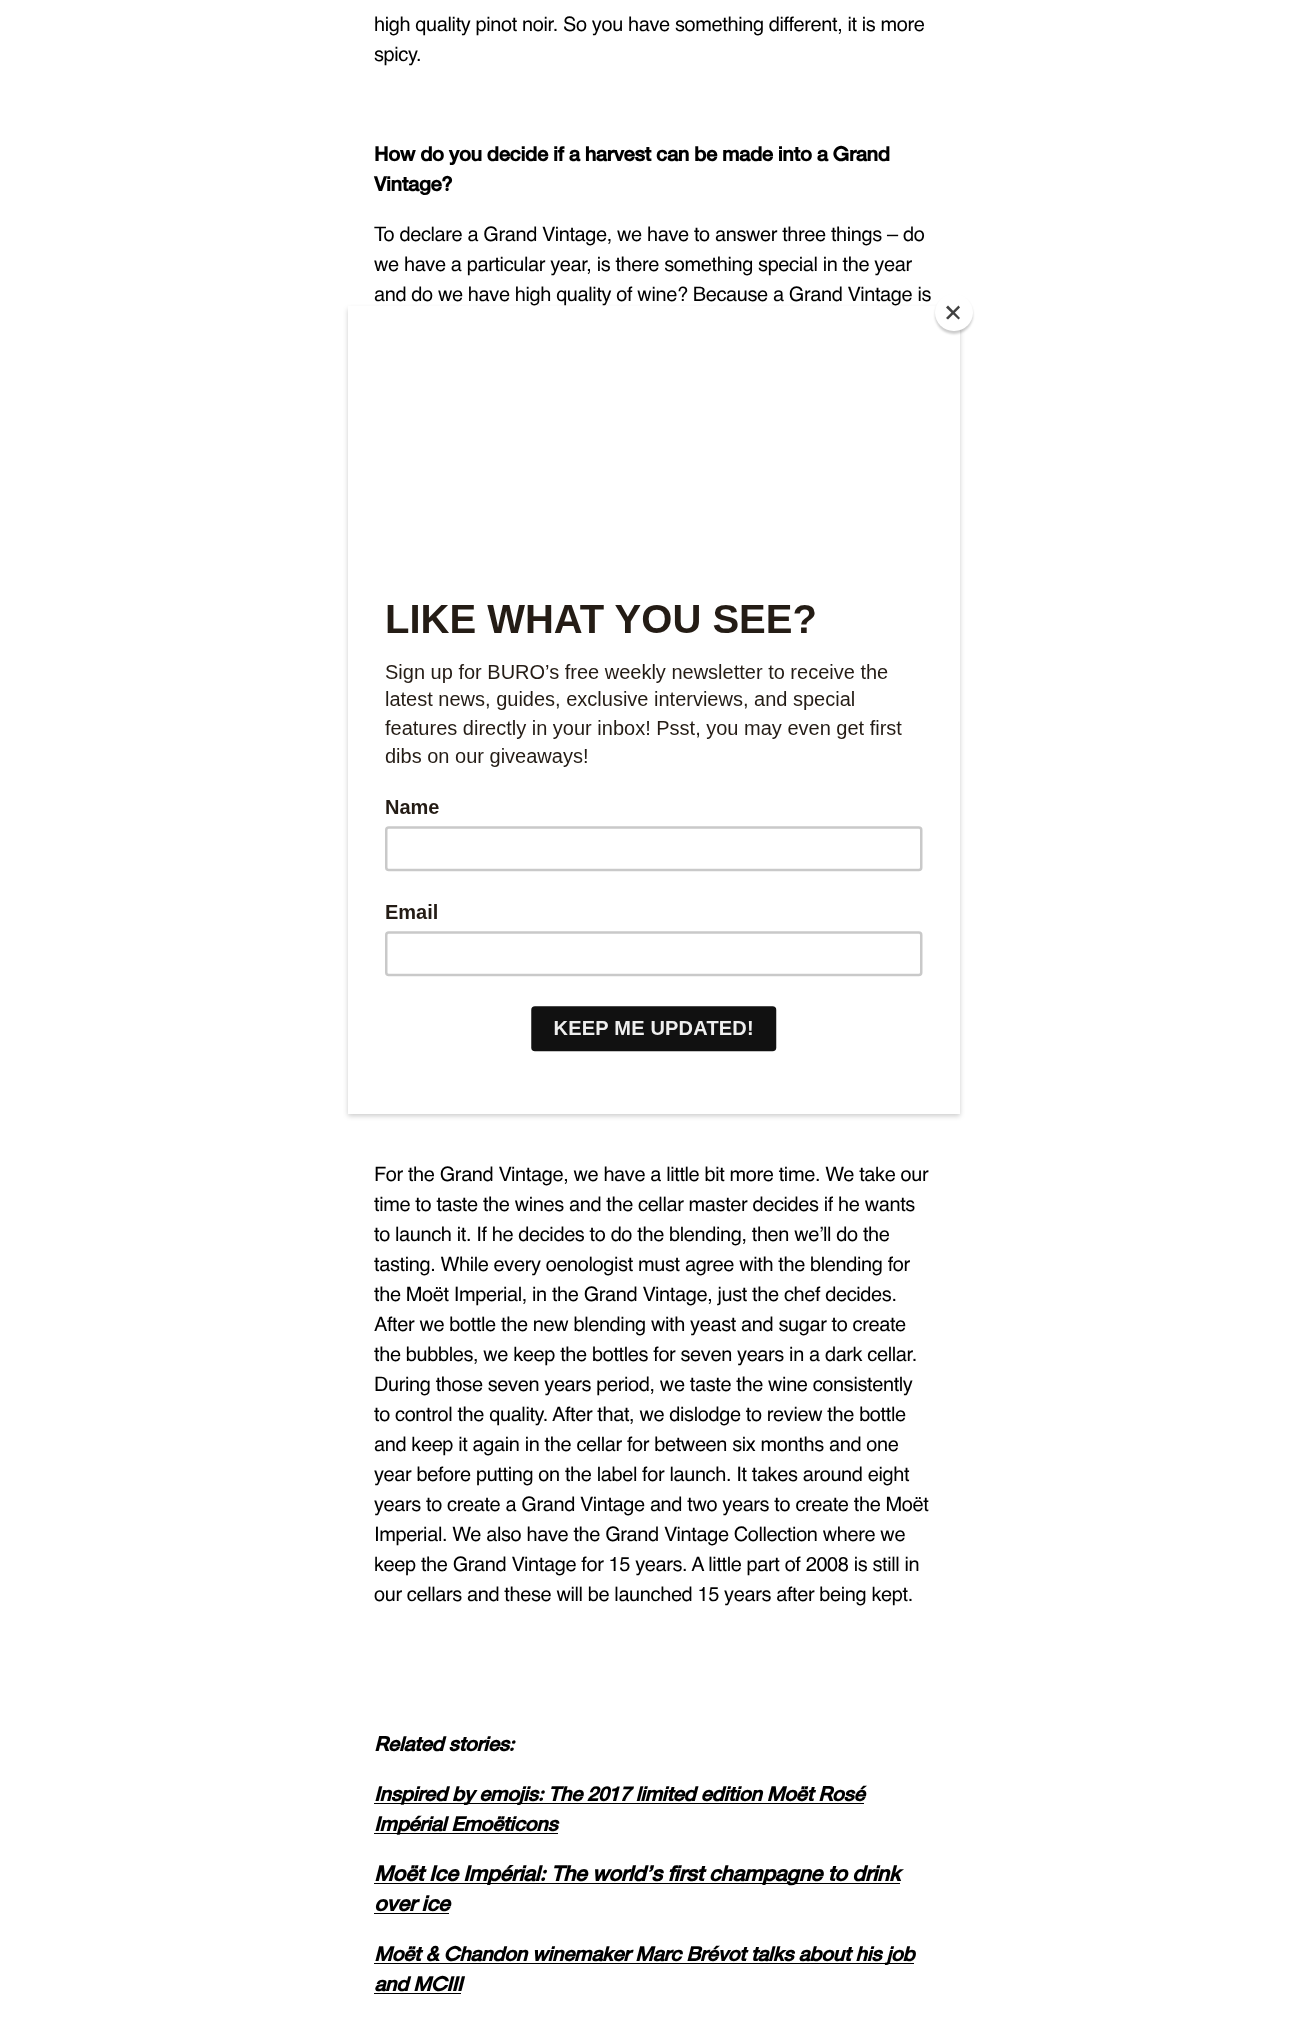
<?xml version="1.0" encoding="UTF-8"?>
<svg xmlns="http://www.w3.org/2000/svg" width="1306" height="2042">
    <defs>
        <clipPath id="clip1"><path d="M 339 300 H 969 V 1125 H 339 Z M 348 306 H 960 V 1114 H 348 Z" clip-rule="evenodd"/></clipPath>
        <filter id="blur1" x="-50%" y="-200%" width="200%" height="500%"><feGaussianBlur stdDeviation="2.5"/></filter>
        <filter id="blur2" x="-50%" y="-200%" width="200%" height="500%"><feGaussianBlur stdDeviation="1"/></filter>
    </defs>
    <rect width="100%" height="100%" fill="#FFFFFF"/>
    <text font-family="Helvetica" font-size="20" letter-spacing="-0.4" fill="#000000">
        <tspan x="374" y="31">high quality pinot noir. So you have something different, it is more</tspan>
        <tspan x="374" y="61">spicy.</tspan>
    </text>
    <text font-family="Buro" font-size="20" font-weight="700" letter-spacing="-0.4" fill="#000000">
        <tspan x="374" y="161">How do you decide if a harvest can be made into a Grand</tspan>
        <tspan x="374" y="191">Vintage?</tspan>
    </text>
    <text font-family="Helvetica" font-size="20" letter-spacing="-0.4" fill="#000000">
        <tspan x="374" y="241">To declare a Grand Vintage, we have to answer three things – do</tspan>
        <tspan x="374" y="271">we have a particular year, is there something special in the year</tspan>
        <tspan x="374" y="301">and do we have high quality of wine? Because a Grand Vintage is</tspan>
    </text>
    <text font-family="Helvetica" font-size="20" letter-spacing="-0.4" fill="#000000">
        <tspan x="374" y="1181">For the Grand Vintage, we have a little bit more time. We take our</tspan>
        <tspan x="374" y="1211">time to taste the wines and the cellar master decides if he wants</tspan>
        <tspan x="374" y="1241">to launch it. If he decides to do the blending, then we’ll do the</tspan>
        <tspan x="374" y="1271">tasting. While every oenologist must agree with the blending for</tspan>
        <tspan x="374" y="1301">the Moët Imperial, in the Grand Vintage, just the chef decides.</tspan>
        <tspan x="374" y="1331">After we bottle the new blending with yeast and sugar to create</tspan>
        <tspan x="374" y="1361">the bubbles, we keep the bottles for seven years in a dark cellar.</tspan>
        <tspan x="374" y="1391">During those seven years period, we taste the wine consistently</tspan>
        <tspan x="374" y="1421">to control the quality. After that, we dislodge to review the bottle</tspan>
        <tspan x="374" y="1451">and keep it again in the cellar for between six months and one</tspan>
        <tspan x="374" y="1481">year before putting on the label for launch. It takes around eight</tspan>
        <tspan x="374" y="1511">years to create a Grand Vintage and two years to create the Moët</tspan>
        <tspan x="374" y="1541">Imperial. We also have the Grand Vintage Collection where we</tspan>
        <tspan x="374" y="1571">keep the Grand Vintage for 15 years. A little part of 2008 is still in</tspan>
        <tspan x="374" y="1601">our cellars and these will be launched 15 years after being kept.</tspan>
    </text>
    <text x="374" y="1751" font-family="Buro" font-size="20" font-weight="700" font-style="italic" letter-spacing="-0.4" fill="#000000">Related stories:</text>
    <rect x="374" y="1803" width="490" height="1" fill="#000000"/>
    <text x="374" y="1801" font-family="Buro" font-size="20" font-weight="700" font-style="italic" letter-spacing="-0.4" fill="#000000">Inspired by emojis: The 2017 limited edition Moët Rosé</text>
    <rect x="374" y="1833" width="184" height="1" fill="#000000"/>
    <text x="374" y="1831" font-family="Buro" font-size="20" font-weight="700" font-style="italic" letter-spacing="-0.4" fill="#000000">Impérial Emoëticons</text>
    <rect x="374" y="1883" width="526" height="1" fill="#000000"/>
    <text font-family="Buro" font-size="21.25" font-weight="700" font-style="italic" letter-spacing="-0.4" fill="#000000">
        <tspan x="374" y="1881">Moët Ice Impérial: The world’s first champagne to drink</tspan>
        <tspan x="374" y="1911">over ice</tspan>
    </text>
    <rect x="374" y="1913" width="75" height="1" fill="#000000"/>
    <rect x="374" y="1963" width="540" height="1" fill="#000000"/>
    <text font-family="Buro" font-size="20" font-weight="700" font-style="italic" letter-spacing="-0.4" fill="#000000">
        <tspan x="374" y="1961">Moët &amp; Chandon winemaker Marc Brévot talks about his job</tspan>
        <tspan x="374" y="1991">and MCIII</tspan>
    </text>
    <rect x="374" y="1993" width="87" height="1" fill="#000000"/>
    <g clip-path="url(#clip1)">
        <rect x="348" y="309" width="612" height="807" fill="#000000" fill-opacity="0.2" filter="url(#blur1)"/>
    </g>
    <image x="348" y="316" width="612" height="798" href="img_01.png"/>
    <rect x="935" y="296" width="38" height="38" rx="19" fill="#000000" fill-opacity="0.2" filter="url(#blur2)"/>
    <rect x="935" y="294" width="38" height="37" rx="18.5" fill="#FFFFFF"/>
    <path d="M 958.5 305.5 L 960 307.5 L 948 319.5 L 946 318 Z" fill="#414141"/>
    <path d="M 946 307.5 L 948 305.5 L 960 318 L 958.5 319.5 Z" fill="#414141"/>
</svg>
